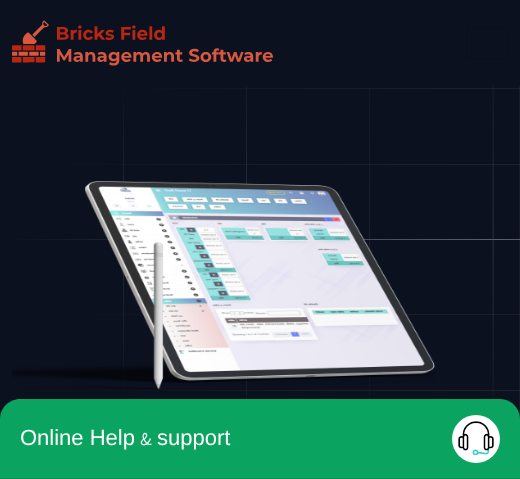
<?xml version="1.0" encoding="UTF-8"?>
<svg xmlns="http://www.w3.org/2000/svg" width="520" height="479">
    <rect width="100%" height="100%" fill="#FFFFFF"/>
    <rect x="0" y="0" width="520" height="86" fill="#0C111F"/>
    <image x="12" y="20" width="261" height="46" href="img_01.png"/>
    <rect x="466.5" y="27.5" width="41" height="31" rx="3.5" fill="none" stroke="#0B0F1C"/>
    <image x="0" y="86" width="520" height="333" href="img_02.png"/>
    <image x="12" y="181" width="423" height="208" href="img_03.png"/>
    <path d="M 20 399 H 500 C 511 399 520 408 520 419 V 479 H 0 V 419 C 0 408 9 399 20 399 Z" fill="#0BA360"/>
    <rect x="0" y="478" width="520" height="1" fill="#0A8F54"/>
    <text x="20" y="445" font-family="Liberation Sans" font-size="22" fill="#FFFFFF">Online Help</text>
    <text x="140" y="445" font-family="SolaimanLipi" font-size="22" fill="#FFFFFF">&amp;</text>
    <text x="157" y="445" font-family="Liberation Sans" font-size="22" fill="#FFFFFF">support</text>
    <image x="452" y="415" width="48" height="48" href="img_04.png"/>
</svg>
